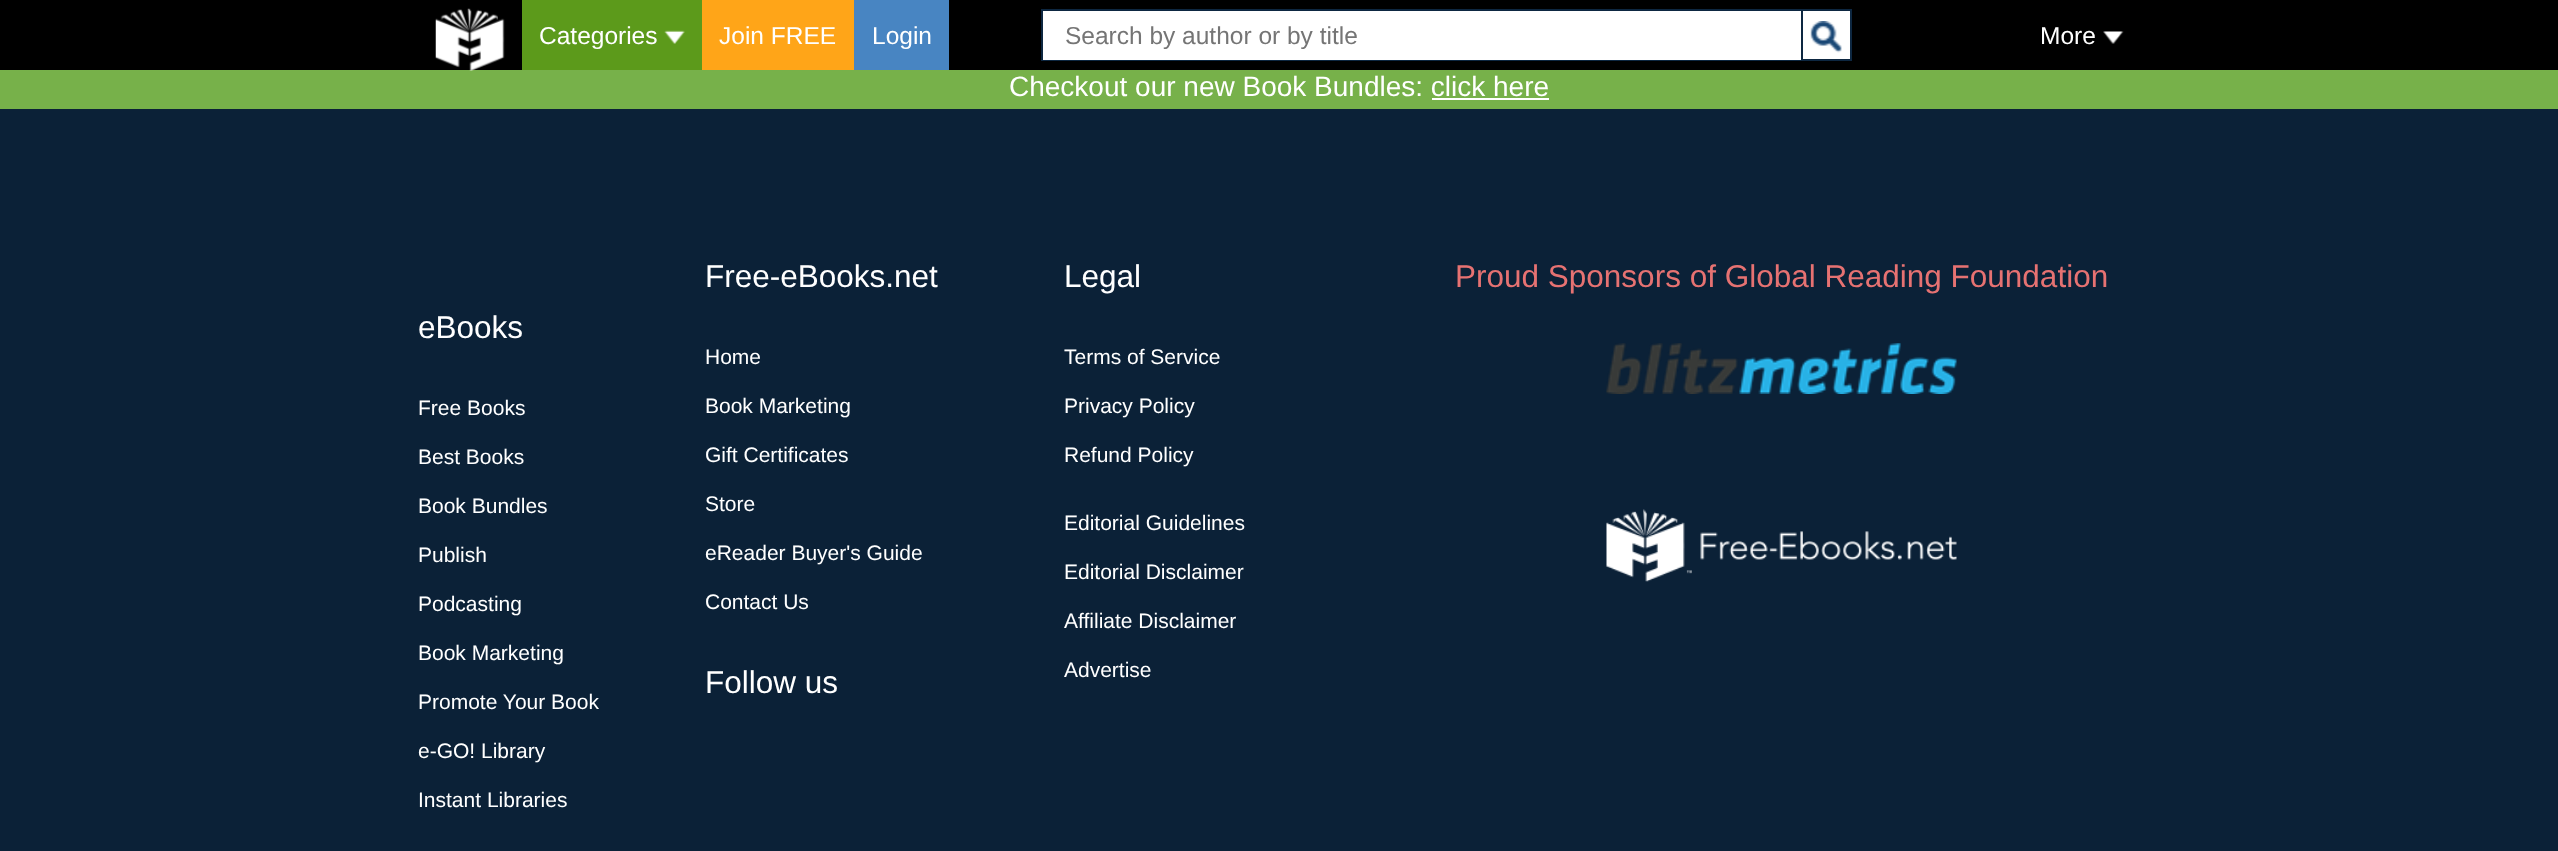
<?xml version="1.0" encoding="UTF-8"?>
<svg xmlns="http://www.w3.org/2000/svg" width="2558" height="851">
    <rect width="100%" height="100%" fill="#0B2137"/>
    <rect x="0" y="0" width="2558" height="70" fill="#000000"/>
    <rect x="0" y="70" width="2558" height="39" fill="#77B14A"/>
    <image x="435" y="8" width="70" height="63" href="img_01.png"/>
    <rect x="522" y="0" width="180" height="70" fill="#5C9A1B"/>
    <text x="539" y="44" font-family="Liberation Sans" font-size="24.5" fill="#FFFFFF">Categories</text>
    <image x="664" y="30" width="21" height="14" href="img_02.png"/>
    <rect x="702" y="0" width="152" height="70" fill="#FFA518"/>
    <text x="719" y="44" font-family="Liberation Sans" font-size="24.5" fill="#FFFFFF">Join FREE</text>
    <rect x="854" y="0" width="95" height="70" fill="#4885C2"/>
    <text x="872" y="44" font-family="Liberation Sans" font-size="24.5" fill="#FFFFFF">Login</text>
    <rect x="1043" y="11" width="758" height="49" fill="#FFFFFF"/>
    <rect x="1041" y="9" width="760" height="2" fill="#0D2741"/>
    <rect x="1041" y="60" width="760" height="1" fill="#0D2741"/>
    <rect x="1041" y="9" width="2" height="52" fill="#0D2741"/>
    <text x="1065" y="44" font-family="Liberation Sans" font-size="24.5" fill="#757575">Search by author or by title</text>
    <rect x="1802" y="10" width="49" height="50" fill="#FFFFFF" stroke="#0D2741" stroke-width="2"/>
    <image x="1810" y="21" width="32" height="32" href="img_03.png"/>
    <text x="2040" y="44" font-family="Liberation Sans" font-size="24.5" fill="#FFFFFF">More</text>
    <image x="2103" y="31" width="21" height="13" href="img_04.png"/>
    <text x="1009" y="96" font-family="Liberation Sans" font-size="28" fill="#FFFFFF">Checkout our new Book Bundles: click here</text>
    <rect x="1432" y="98" width="117" height="2" fill="#FFFFFF"/>
    <text x="705" y="287" font-family="Liberation Sans" font-size="31.5" fill="#FFFFFF">Free-eBooks.net</text>
    <text x="705" y="364" font-family="Liberation Sans" font-size="21" fill="#FFFFFF">Home</text>
    <text x="705" y="413" font-family="Liberation Sans" font-size="21" fill="#FFFFFF">Book Marketing</text>
    <text x="705" y="462" font-family="Liberation Sans" font-size="21" fill="#FFFFFF">Gift Certificates</text>
    <text x="705" y="511" font-family="Liberation Sans" font-size="21" fill="#FFFFFF">Store</text>
    <text x="705" y="560" font-family="Liberation Sans" font-size="21" fill="#FFFFFF">eReader Buyer's Guide</text>
    <text x="705" y="609" font-family="Liberation Sans" font-size="21" fill="#FFFFFF">Contact Us</text>
    <text x="705" y="693" font-family="Liberation Sans" font-size="31.5" fill="#FFFFFF">Follow us</text>
    <text x="1064" y="287" font-family="Liberation Sans" font-size="31.5" fill="#FFFFFF">Legal</text>
    <text x="1064" y="364" font-family="Liberation Sans" font-size="21" fill="#FFFFFF">Terms of Service</text>
    <text x="1064" y="413" font-family="Liberation Sans" font-size="21" fill="#FFFFFF">Privacy Policy</text>
    <text x="1064" y="462" font-family="Liberation Sans" font-size="21" fill="#FFFFFF">Refund Policy</text>
    <text x="1064" y="530" font-family="Liberation Sans" font-size="21" fill="#FFFFFF">Editorial Guidelines</text>
    <text x="1064" y="579" font-family="Liberation Sans" font-size="21" fill="#FFFFFF">Editorial Disclaimer</text>
    <text x="1064" y="628" font-family="Liberation Sans" font-size="21" fill="#FFFFFF">Affiliate Disclaimer</text>
    <text x="1064" y="677" font-family="Liberation Sans" font-size="21" fill="#FFFFFF">Advertise</text>
    <text x="1455" y="287" font-family="Liberation Sans" font-size="31.5" fill="#E67272">Proud Sponsors of Global Reading Foundation</text>
    <image x="1606" y="343" width="351" height="51" href="img_05.png"/>
    <image x="1606" y="509" width="351" height="73" href="img_06.png"/>
    <text x="418" y="338" font-family="Liberation Sans" font-size="31.5" fill="#FFFFFF">eBooks</text>
    <text x="418" y="415" font-family="Liberation Sans" font-size="21" fill="#FFFFFF">Free Books</text>
    <text x="418" y="464" font-family="Liberation Sans" font-size="21" fill="#FFFFFF">Best Books</text>
    <text x="418" y="513" font-family="Liberation Sans" font-size="21" fill="#FFFFFF">Book Bundles</text>
    <text x="418" y="562" font-family="Liberation Sans" font-size="21" fill="#FFFFFF">Publish</text>
    <text x="418" y="611" font-family="Liberation Sans" font-size="21" fill="#FFFFFF">Podcasting</text>
    <text x="418" y="660" font-family="Liberation Sans" font-size="21" fill="#FFFFFF">Book Marketing</text>
    <text x="418" y="709" font-family="Liberation Sans" font-size="21" fill="#FFFFFF">Promote Your Book</text>
    <text x="418" y="758" font-family="Liberation Sans" font-size="21" fill="#FFFFFF">e-GO! Library</text>
    <text x="418" y="807" font-family="Liberation Sans" font-size="21" fill="#FFFFFF">Instant Libraries</text>
</svg>
